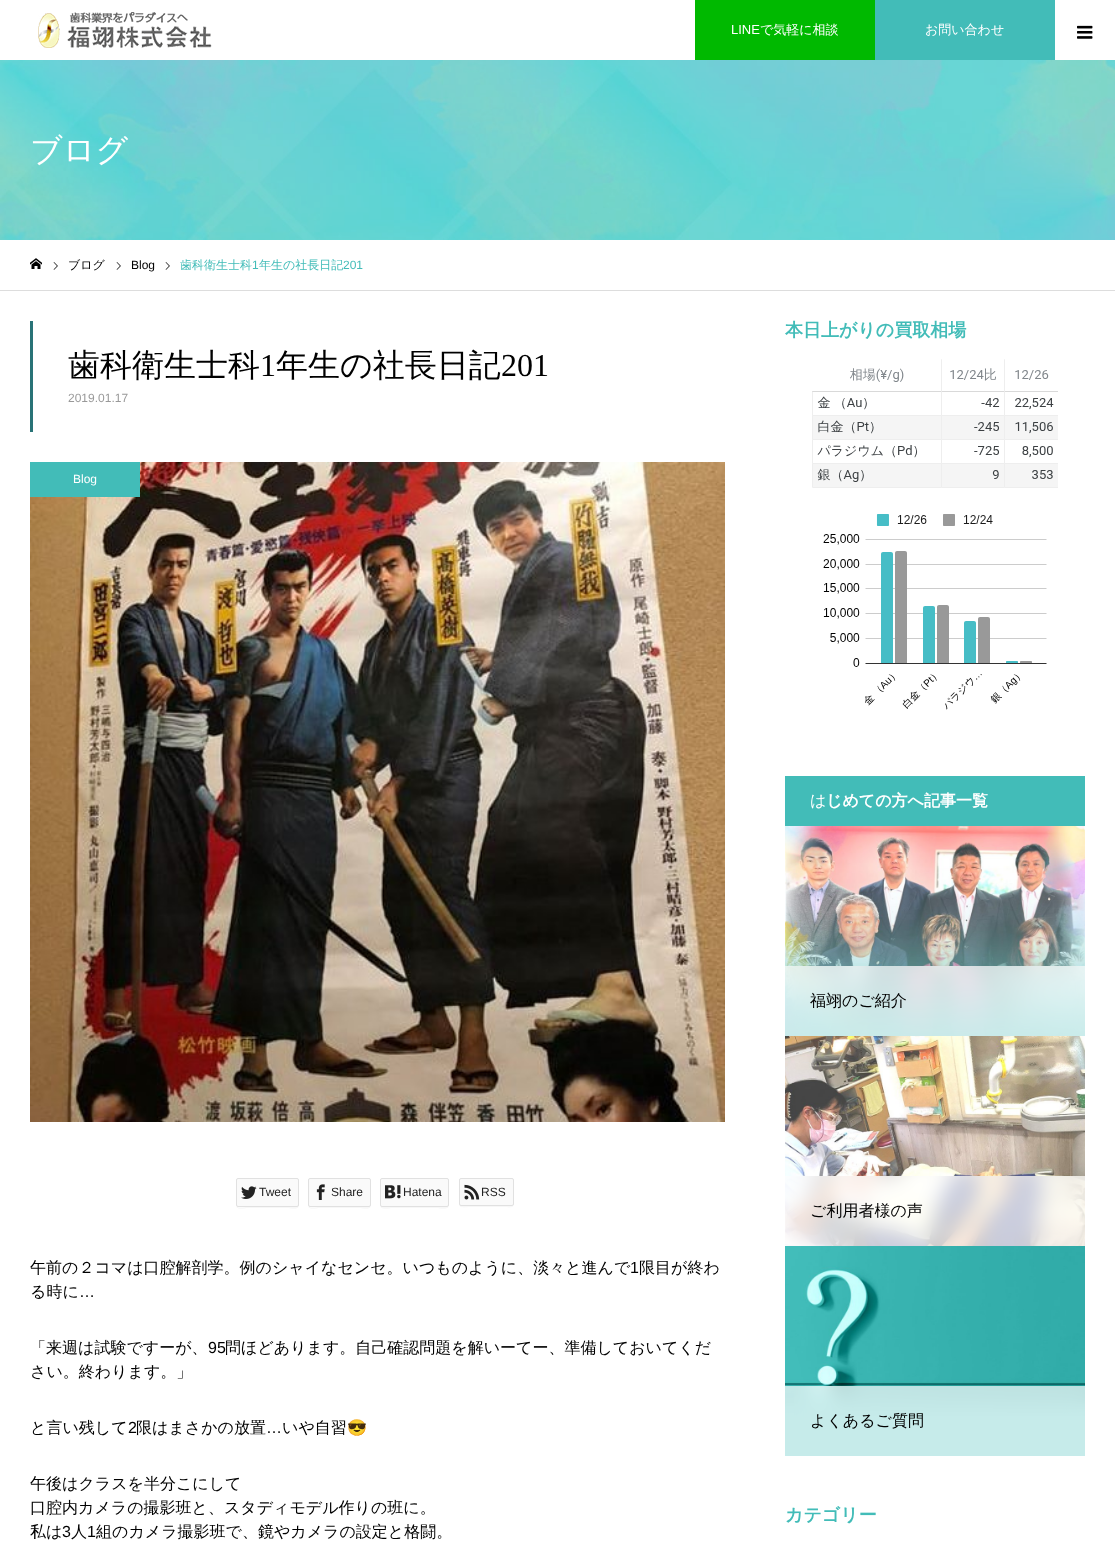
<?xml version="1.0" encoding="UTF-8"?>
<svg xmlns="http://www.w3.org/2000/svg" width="1115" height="1558">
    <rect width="100%" height="100%" fill="#FFFFFF"/>
    <image x="38" y="12" width="174" height="36" href="img_01.png"/>
    <rect x="695" y="0" width="180" height="60" fill="#00B900"/>
    <text x="731" y="34" font-family="Liberation Sans" font-size="13" fill="#FFFFFF">LINE</text>
    <text x="760" y="34" font-family="WenQuanYi Zen Hei" font-size="13" font-weight="500" fill="#FFFFFF">で気軽に相談</text>
    <rect x="875" y="0" width="180" height="60" fill="#42BCB8"/>
    <text x="925" y="34" font-family="WenQuanYi Zen Hei" font-size="13" font-weight="500" fill="#FFFFFF">お問い合わせ</text>
    <image x="1077" y="25" width="16" height="14" href="img_02.png"/>
    <image x="0" y="60" width="1115" height="180" href="img_03.png"/>
    <text x="30" y="161" font-family="WenQuanYi Zen Hei" font-size="32" font-weight="500" fill="#FFFFFF">ブログ</text>
    <rect x="0" y="290" width="1115" height="1" fill="#DDDDDD"/>
    <image x="30" y="258" width="12" height="11" href="img_04.png"/>
    <image x="53" y="262" width="5" height="8" href="img_05.png"/>
    <text x="68" y="269" font-family="WenQuanYi Zen Hei" font-size="12" font-weight="500" fill="#000000">ブログ</text>
    <image x="116" y="262" width="5" height="8" href="img_05.png"/>
    <text x="131" y="269" font-family="Liberation Sans" font-size="12" fill="#000000">Blog</text>
    <image x="165" y="262" width="5" height="8" href="img_05.png"/>
    <text x="180" y="269" font-family="WenQuanYi Zen Hei" font-size="12" font-weight="500" fill="#42BCB8">歯科衛生士科</text>
    <text x="252" y="269" font-family="Liberation Sans" font-size="12" fill="#42BCB8">1</text>
    <text x="259" y="269" font-family="WenQuanYi Zen Hei" font-size="12" font-weight="500" fill="#42BCB8">年生の社長日記</text>
    <text x="343" y="269" font-family="Liberation Sans" font-size="12" fill="#42BCB8">201</text>
    <rect x="30" y="321" width="3" height="111" fill="#297377"/>
    <text x="68" y="376" font-family="WenQuanYi Zen Hei" font-size="32" font-weight="500" fill="#000000">歯科衛生士科</text>
    <text x="260" y="376" font-family="Liberation Serif" font-size="32" fill="#000000">1</text>
    <text x="276" y="376" font-family="WenQuanYi Zen Hei" font-size="32" font-weight="500" fill="#000000">年生の社長日記</text>
    <text x="501" y="376" font-family="Liberation Serif" font-size="32" fill="#000000">201</text>
    <text x="68" y="402" font-family="Liberation Sans" font-size="12" fill="#999999">2019.01.17</text>
    <image x="30" y="462" width="695" height="660" href="img_06.png"/>
    <rect x="30" y="462" width="110" height="35" fill="#42BCB8"/>
    <text x="73" y="483" font-family="Liberation Sans" font-size="12" fill="#FFFFFF">Blog</text>
    <path d="M 236 1205 C 236 1211 244 1208 248 1208 H 287 C 291 1208 299 1211 299 1205 L 298 1207 H 248 C 244 1207 236 1209 236 1205 Z" fill="#F7F7F7"/>
    <rect x="236.5" y="1178.5" width="62" height="28" rx="1.5" fill="#FAFAFA" stroke="#E1E1E1"/>
    <image x="241" y="1186" width="16" height="13" href="img_07.png"/>
    <text x="259" y="1196" font-family="Liberation Sans" font-size="12" fill="#222222">Tweet</text>
    <path d="M 308 1205 C 308 1211 316 1208 320 1208 H 359 C 363 1208 371 1211 371 1205 L 370 1207 H 320 C 316 1207 308 1209 308 1205 Z" fill="#F7F7F7"/>
    <rect x="308.5" y="1178.5" width="62" height="28" rx="1.5" fill="#FAFAFA" stroke="#E1E1E1"/>
    <image x="316" y="1184" width="9" height="16" href="img_08.png"/>
    <text x="331" y="1196" font-family="Liberation Sans" font-size="12" fill="#222222">Share</text>
    <path d="M 380 1205 C 380 1211 389 1208 393 1208 H 436 C 440 1208 449 1211 449 1205 C 449 1206 448 1207 447 1207 H 381 Z" fill="#F7F7F7"/>
    <rect x="380.5" y="1178.5" width="68" height="28" rx="1.5" fill="#FAFAFA" stroke="#E1E1E1"/>
    <image x="385" y="1185" width="16" height="14" href="img_09.png"/>
    <text x="403" y="1196" font-family="Liberation Sans" font-size="12" fill="#222222">Hatena</text>
    <path d="M 459 1204 C 459 1209 466 1207 470 1207 H 504 C 507 1207 514 1209 514 1204 L 513 1206 H 460 Z" fill="#F7F7F7"/>
    <rect x="459.5" y="1178.5" width="54" height="27" rx="1.5" fill="#FAFAFA" stroke="#E1E1E1"/>
    <image x="464" y="1184" width="16" height="16" href="img_10.png"/>
    <text x="481" y="1196" font-family="Liberation Sans" font-size="12" fill="#222222">RSS</text>
    <text x="30" y="1273" font-family="WenQuanYi Zen Hei" font-size="16" font-weight="500" fill="#000000">午前の２コマは口腔解剖学。例のシャイなセンセ。いつものように、淡々と進んで</text>
    <text x="630" y="1273" font-family="Liberation Sans" font-size="16" fill="#000000">1</text>
    <text x="639" y="1273" font-family="WenQuanYi Zen Hei" font-size="16" font-weight="500" fill="#000000">限目が終わ</text>
    <text x="30" y="1297" font-family="WenQuanYi Zen Hei" font-size="16" font-weight="500" fill="#000000">る時に</text>
    <text x="79" y="1297" font-family="Liberation Sans" font-size="16" fill="#000000">…</text>
    <text x="30" y="1353" font-family="WenQuanYi Zen Hei" font-size="16" font-weight="500" fill="#000000">「来週は試験ですーが、</text>
    <text x="208" y="1353" font-family="Liberation Sans" font-size="16" fill="#000000">95</text>
    <text x="225" y="1353" font-family="WenQuanYi Zen Hei" font-size="16" font-weight="500" fill="#000000">問ほどあります。自己確認問題を解いーてー、準備しておいてくだ</text>
    <text x="30" y="1377" font-family="WenQuanYi Zen Hei" font-size="16" font-weight="500" fill="#000000">さい。終わります。」</text>
    <text x="30" y="1433" font-family="WenQuanYi Zen Hei" font-size="16" font-weight="500" fill="#000000">と言い残して</text>
    <text x="128" y="1433" font-family="Liberation Sans" font-size="16" fill="#000000">2</text>
    <text x="136" y="1433" font-family="WenQuanYi Zen Hei" font-size="16" font-weight="500" fill="#000000">限はまさかの放置</text>
    <text x="266" y="1433" font-family="Liberation Sans" font-size="16" fill="#000000">…</text>
    <text x="282" y="1433" font-family="WenQuanYi Zen Hei" font-size="16" font-weight="500" fill="#000000">いや自習</text>
    <text x="347" y="1433" font-family="Noto Color Emoji" font-size="16" fill="#000000">😎</text>
    <text font-family="WenQuanYi Zen Hei" font-size="16" font-weight="500" fill="#000000">
        <tspan x="30" y="1489">午後はクラスを半分こにして</tspan>
        <tspan x="30" y="1513">口腔内カメラの撮影班と、スタディモデル作りの班に。</tspan>
        <tspan x="30" y="1537">私は</tspan>
    </text>
    <text x="62" y="1537" font-family="Liberation Sans" font-size="16" fill="#000000">3</text>
    <text x="71" y="1537" font-family="WenQuanYi Zen Hei" font-size="16" font-weight="500" fill="#000000">人</text>
    <text x="87" y="1537" font-family="Liberation Sans" font-size="16" fill="#000000">1</text>
    <text x="96" y="1537" font-family="WenQuanYi Zen Hei" font-size="16" font-weight="500" fill="#000000">組のカメラ撮影班で、鏡やカメラの設定と格闘。</text>
    <text x="785" y="336" font-family="WenQuanYi Zen Hei" font-size="18" font-weight="700" fill="#42BCB8">本日上がりの買取相場</text>
    <image x="812" y="359" width="246" height="129" href="img_11.png"/>
    <image x="823" y="514" width="224" height="196" href="img_12.png"/>
    <rect x="785" y="776" width="300" height="50" fill="#42BCB8"/>
    <text x="810" y="806" font-family="Noto Sans" font-size="16" font-weight="100" fill="#FFFFFF">は</text>
    <text x="826" y="806" font-family="WenQuanYi Zen Hei" font-size="16" font-weight="700" fill="#FFFFFF">じめての方へ記事一覧</text>
    <image x="785" y="826" width="300" height="210" href="img_13.png"/>
    <image x="785" y="966" width="300" height="70" href="img_14.png"/>
    <rect x="785" y="966" width="300" height="70" fill="#FFFFFF" fill-opacity="0.7"/>
    <text x="810" y="1006" font-family="WenQuanYi Zen Hei" font-size="16" font-weight="500" fill="#000000">福翊のご紹介</text>
    <image x="785" y="1036" width="300" height="210" href="img_15.png"/>
    <image x="785" y="1176" width="300" height="70" href="img_16.png"/>
    <rect x="785" y="1176" width="300" height="70" fill="#FFFFFF" fill-opacity="0.7"/>
    <text x="810" y="1216" font-family="WenQuanYi Zen Hei" font-size="16" font-weight="500" fill="#000000">ご利用者様の声</text>
    <image x="785" y="1246" width="300" height="210" href="img_17.png"/>
    <image x="794" y="1386" width="291" height="30" href="img_18.png"/>
    <rect x="785" y="1386" width="300" height="70" fill="#FFFFFF" fill-opacity="0.7"/>
    <text x="810" y="1426" font-family="WenQuanYi Zen Hei" font-size="16" font-weight="500" fill="#000000">よくあるご質問</text>
    <text x="785" y="1521" font-family="WenQuanYi Zen Hei" font-size="18" font-weight="700" fill="#42BCB8">カテゴリー</text>
</svg>
